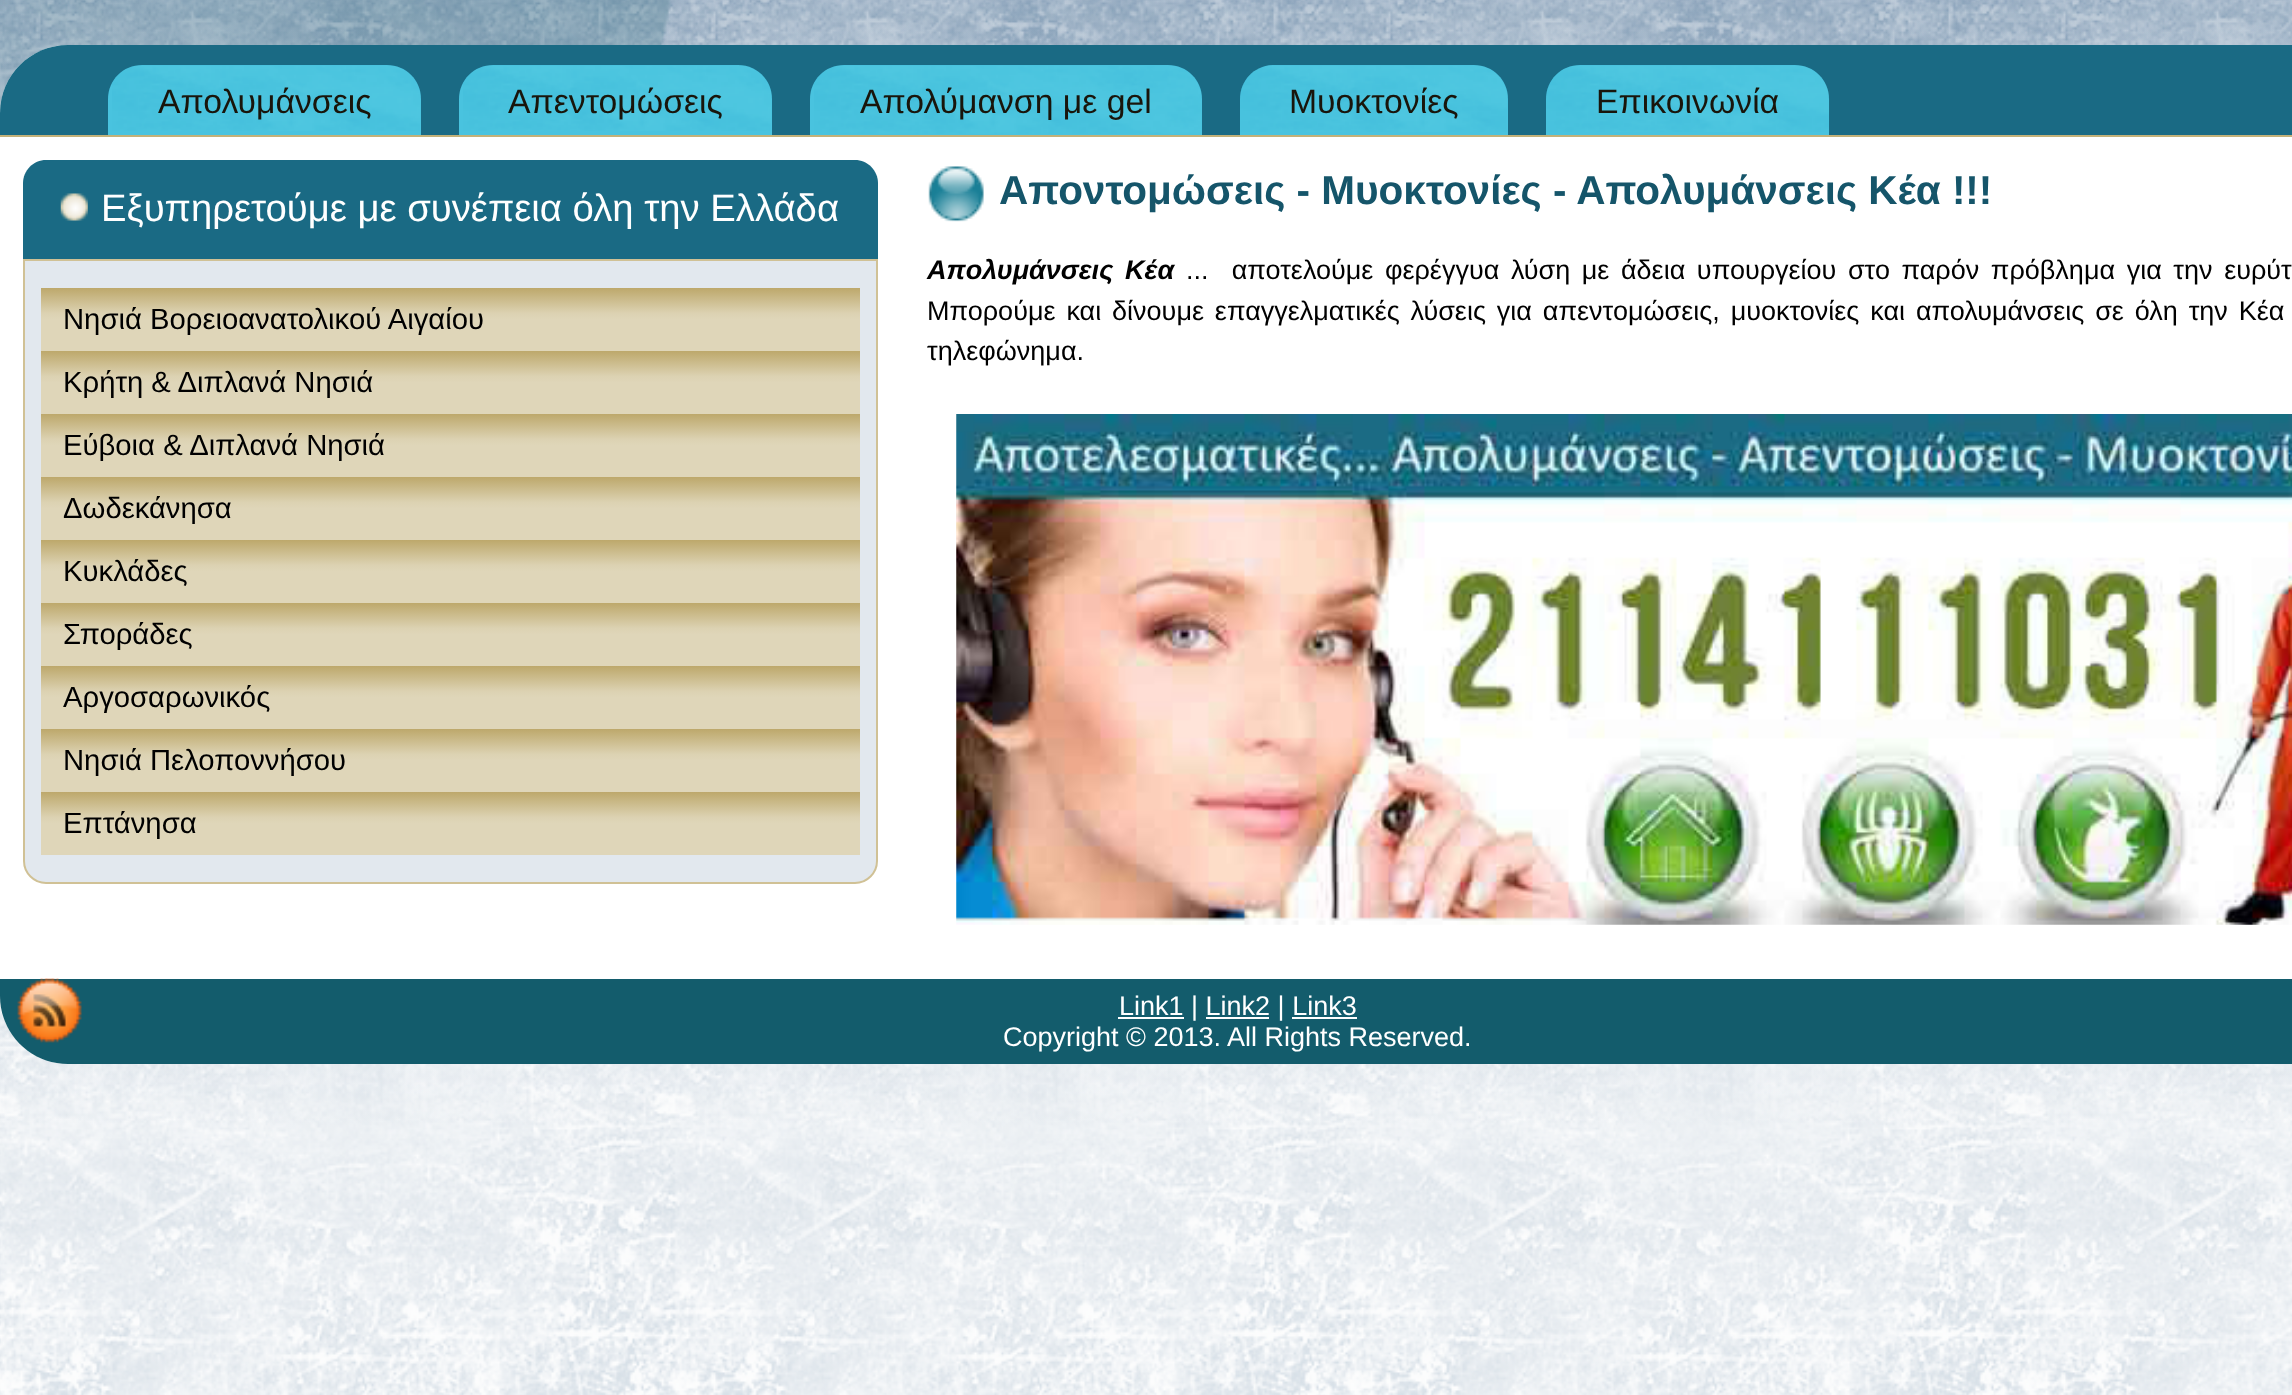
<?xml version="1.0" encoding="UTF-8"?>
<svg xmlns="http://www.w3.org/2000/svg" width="2292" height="1395">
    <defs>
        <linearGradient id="g1" gradientUnits="userSpaceOnUse" x1="450" y1="288" x2="450" y2="351"><stop offset="0" stop-color="#BDA86B"/><stop offset="0.4" stop-color="#DCD2B2"/><stop offset="0.5" stop-color="#DFD6B9"/><stop offset="1" stop-color="#DFD6B9"/></linearGradient>
        <linearGradient id="g2" gradientUnits="userSpaceOnUse" x1="450" y1="351" x2="450" y2="414"><stop offset="0" stop-color="#BDA86B"/><stop offset="0.4" stop-color="#DCD2B2"/><stop offset="0.5" stop-color="#DFD6B9"/><stop offset="1" stop-color="#DFD6B9"/></linearGradient>
        <linearGradient id="g3" gradientUnits="userSpaceOnUse" x1="450" y1="414" x2="450" y2="477"><stop offset="0" stop-color="#BDA86B"/><stop offset="0.4" stop-color="#DCD2B2"/><stop offset="0.5" stop-color="#DFD6B9"/><stop offset="1" stop-color="#DFD6B9"/></linearGradient>
        <linearGradient id="g4" gradientUnits="userSpaceOnUse" x1="450" y1="477" x2="450" y2="540"><stop offset="0" stop-color="#BDA86B"/><stop offset="0.4" stop-color="#DCD2B2"/><stop offset="0.5" stop-color="#DFD6B9"/><stop offset="1" stop-color="#DFD6B9"/></linearGradient>
        <linearGradient id="g5" gradientUnits="userSpaceOnUse" x1="450" y1="540" x2="450" y2="603"><stop offset="0" stop-color="#BDA86B"/><stop offset="0.4" stop-color="#DCD2B2"/><stop offset="0.5" stop-color="#DFD6B9"/><stop offset="1" stop-color="#DFD6B9"/></linearGradient>
        <linearGradient id="g6" gradientUnits="userSpaceOnUse" x1="450" y1="603" x2="450" y2="666"><stop offset="0" stop-color="#BDA86B"/><stop offset="0.4" stop-color="#DCD2B2"/><stop offset="0.5" stop-color="#DFD6B9"/><stop offset="1" stop-color="#DFD6B9"/></linearGradient>
        <linearGradient id="g7" gradientUnits="userSpaceOnUse" x1="450" y1="666" x2="450" y2="729"><stop offset="0" stop-color="#BDA86B"/><stop offset="0.4" stop-color="#DCD2B2"/><stop offset="0.5" stop-color="#DFD6B9"/><stop offset="1" stop-color="#DFD6B9"/></linearGradient>
        <linearGradient id="g8" gradientUnits="userSpaceOnUse" x1="450" y1="729" x2="450" y2="792"><stop offset="0" stop-color="#BDA86B"/><stop offset="0.4" stop-color="#DCD2B2"/><stop offset="0.5" stop-color="#DFD6B9"/><stop offset="1" stop-color="#DFD6B9"/></linearGradient>
        <linearGradient id="g9" gradientUnits="userSpaceOnUse" x1="450" y1="792" x2="450" y2="855"><stop offset="0" stop-color="#BDA86B"/><stop offset="0.4" stop-color="#DCD2B2"/><stop offset="0.5" stop-color="#DFD6B9"/><stop offset="1" stop-color="#DFD6B9"/></linearGradient>
    </defs>
    <rect width="100%" height="100%" fill="#FFFFFF"/>
    <image x="0" y="0" width="2292" height="1395" href="img_01.png"/>
    <rect x="0" y="45" width="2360" height="1019" rx="68" fill="#FFFFFF"/>
    <path d="M 68 45 H 2292 C 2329.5 45 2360 75.5 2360 113 V 137 H 0 V 113 C 0 75.5 30.5 45 68 45 Z" fill="#1A6A84"/>
    <rect x="0" y="135" width="2292" height="2" fill="#C3B179"/>
    <path d="M 142 65 H 387 C 406 65 421 80 421 99 V 135 H 108 V 99 C 108 80 123 65 142 65 Z" fill="#49C3DF"/>
    <image x="112" y="66" width="308" height="65" href="img_02.png"/>
    <text x="158" y="113" font-family="Liberation Sans" font-size="33.75" fill="#19150B">Απολυμάνσεις</text>
    <path d="M 493 65 H 738 C 757 65 772 80 772 99 V 135 H 459 V 99 C 459 80 474 65 493 65 Z" fill="#49C3DF"/>
    <image x="463" y="66" width="308" height="65" href="img_03.png"/>
    <text x="508" y="113" font-family="Liberation Sans" font-size="33.75" fill="#19150B">Απεντομώσεις</text>
    <path d="M 844 65 H 1168 C 1187 65 1202 80 1202 99 V 135 H 810 V 99 C 810 80 825 65 844 65 Z" fill="#49C3DF"/>
    <image x="814" y="66" width="387" height="68" href="img_04.png"/>
    <text x="860" y="113" font-family="Liberation Sans" font-size="33.75" fill="#19150B">Απολύμανση με gel</text>
    <path d="M 1274 65 H 1474 C 1493 65 1508 80 1508 99 V 135 H 1240 V 99 C 1240 80 1255 65 1274 65 Z" fill="#49C3DF"/>
    <image x="1240" y="66" width="267" height="66" href="img_05.png"/>
    <text x="1289" y="113" font-family="Liberation Sans" font-size="33.75" fill="#19150B">Μυοκτονίες</text>
    <path d="M 1580 65 H 1795 C 1814 65 1829 80 1829 99 V 135 H 1546 V 99 C 1546 80 1561 65 1580 65 Z" fill="#49C3DF"/>
    <image x="1546" y="66" width="284" height="66" href="img_06.png"/>
    <text x="1596" y="113" font-family="Liberation Sans" font-size="33.75" fill="#19150B">Επικοινωνία</text>
    <path d="M 46 160 H 855 C 867.5 160 878 170.5 878 183 V 259 H 23 V 183 C 23 170.5 33.5 160 46 160 Z" fill="#1A6A84"/>
    <image x="60" y="193" width="28" height="28" href="img_07.png"/>
    <text x="101" y="221" font-family="Liberation Sans" font-size="38.25" fill="#FFFFFF">Εξυπηρετούμε με συνέπεια όλη την Ελλάδα</text>
    <path d="M 24 260 H 877 V 861 C 877 873 867 883 855 883 H 46 C 34 883 24 873 24 861 Z" fill="#E2E8EE" stroke="#D0C195" stroke-width="2"/>
    <rect x="41" y="288" width="819" height="63" fill="url(#g1)"/>
    <text x="63" y="329" font-family="Liberation Sans" font-size="29.25" fill="#000000">Νησιά Βορειοανατολικού Αιγαίου</text>
    <rect x="41" y="351" width="819" height="63" fill="url(#g2)"/>
    <text x="63" y="392" font-family="Liberation Sans" font-size="29.25" fill="#000000">Κρήτη &amp; Διπλανά Νησιά</text>
    <rect x="41" y="414" width="819" height="63" fill="url(#g3)"/>
    <text x="63" y="455" font-family="Liberation Sans" font-size="29.25" fill="#000000">Εύβοια &amp; Διπλανά Νησιά</text>
    <rect x="41" y="477" width="819" height="63" fill="url(#g4)"/>
    <text x="63" y="518" font-family="Liberation Sans" font-size="29.25" fill="#000000">Δωδεκάνησα</text>
    <rect x="41" y="540" width="819" height="63" fill="url(#g5)"/>
    <text x="63" y="581" font-family="Liberation Sans" font-size="29.25" fill="#000000">Κυκλάδες</text>
    <rect x="41" y="603" width="819" height="63" fill="url(#g6)"/>
    <text x="63" y="644" font-family="Liberation Sans" font-size="29.25" fill="#000000">Σποράδες</text>
    <rect x="41" y="666" width="819" height="63" fill="url(#g7)"/>
    <text x="63" y="707" font-family="Liberation Sans" font-size="29.25" fill="#000000">Αργοσαρωνικός</text>
    <rect x="41" y="729" width="819" height="63" fill="url(#g8)"/>
    <text x="63" y="770" font-family="Liberation Sans" font-size="29.25" fill="#000000">Νησιά Πελοποννήσου</text>
    <rect x="41" y="792" width="819" height="63" fill="url(#g9)"/>
    <text x="63" y="833" font-family="Liberation Sans" font-size="29.25" fill="#000000">Επτάνησα</text>
    <image x="928" y="166" width="56" height="56" href="img_08.png"/>
    <text x="999" y="204" font-family="Liberation Sans" font-size="40.5" font-weight="700" fill="#15556A">Αποντομώσεις - Μυοκτονίες - Απολυμάνσεις Κέα !!!</text>
    <text x="927" y="279" word-spacing="4.1" font-family="Liberation Sans" font-size="27" font-weight="700" font-style="italic" fill="#000000">Απολυμάνσεις Κέα</text>
    <text x="1186" y="279" word-spacing="4.1" font-family="Liberation Sans" font-size="27" fill="#000000" xml:space="preserve">...  αποτελούμε φερέγγυα λύση με άδεια υπουργείου στο παρόν πρόβλημα για την ευρύτ</text>
    <text font-family="Liberation Sans" font-size="27" fill="#000000">
        <tspan x="927" y="320" word-spacing="3.4">Μπορούμε και δίνουμε επαγγελματικές λύσεις για απεντομώσεις, μυοκτονίες και απολυμάνσεις σε όλη την Κέα</tspan>
        <tspan x="927" y="360">τηλεφώνημα.</tspan>
    </text>
    <image x="956" y="414" width="1336" height="511" href="img_09.png"/>
    <path d="M 0 979 H 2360 V 996 C 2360 1033.5 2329.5 1064 2292 1064 H 68 C 30.5 1064 0 1033.5 0 996 Z" fill="#135C6C"/>
    <image x="17" y="978" width="65" height="65" href="img_10.png"/>
    <rect x="1118" y="1017" width="66" height="2" fill="#FFFFFF"/>
    <text x="1119" y="1015" font-family="Liberation Sans" font-size="27" fill="#FFFFFF">Link1 | Link2 | Link3</text>
    <rect x="1206" y="1017" width="63" height="2" fill="#FFFFFF"/>
    <rect x="1292" y="1017" width="65" height="2" fill="#FFFFFF"/>
    <text x="1003" y="1046" font-family="Liberation Sans" font-size="27" fill="#FFFFFF">Copyright © 2013. All Rights Reserved.</text>
</svg>
